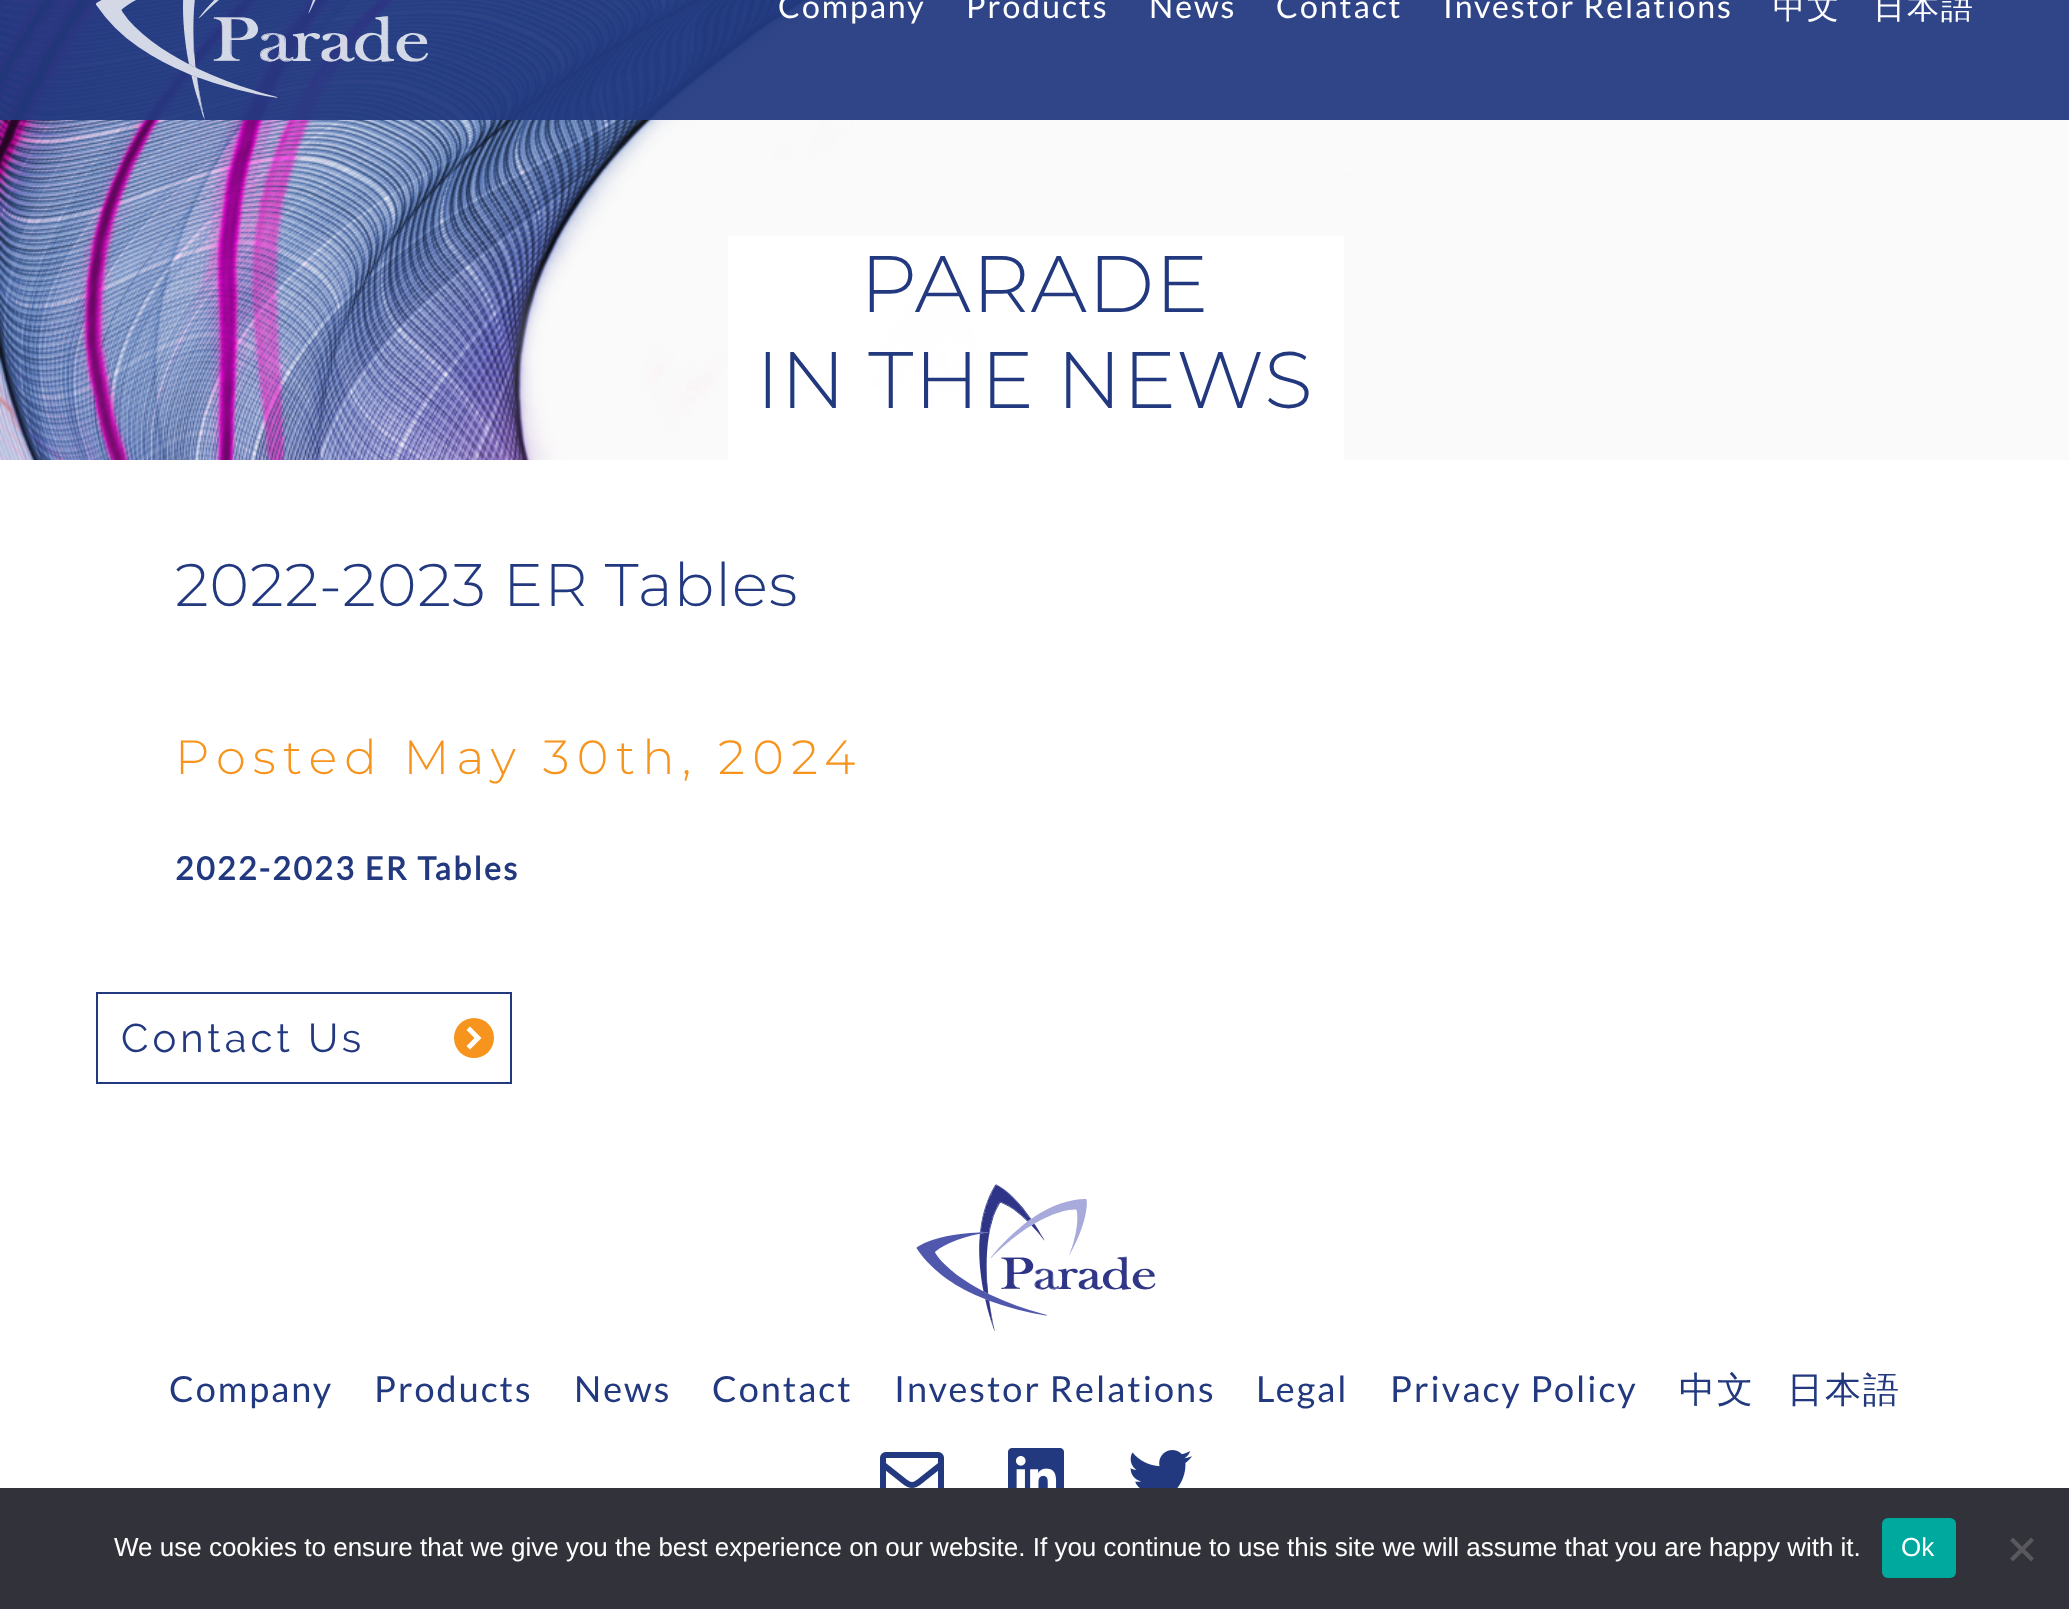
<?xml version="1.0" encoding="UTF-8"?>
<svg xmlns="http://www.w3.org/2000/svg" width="2069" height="1609">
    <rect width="100%" height="100%" fill="#FFFFFF"/>
    <image x="0" y="0" width="2069" height="460" href="img_01.png"/>
    <rect x="0" y="0" width="2069" height="120" fill="#22397F" fill-opacity="0.94"/>
    <image x="96" y="0" width="332" height="120" href="img_02.png"/>
    <text x="778" y="18" font-family="Lato" font-size="32" letter-spacing="2" fill="#FFFFFF">Company</text>
    <text x="966" y="18" font-family="Lato" font-size="32" letter-spacing="2" fill="#FFFFFF">Products</text>
    <text x="1149" y="18" font-family="Lato" font-size="32" letter-spacing="2" fill="#FFFFFF">News</text>
    <text x="1276" y="18" font-family="Lato" font-size="32" letter-spacing="2" fill="#FFFFFF">Contact</text>
    <text x="1443" y="18" font-family="Lato" font-size="32" letter-spacing="2" fill="#FFFFFF">Investor Relations</text>
    <text x="1773" y="18" font-family="WenQuanYi Zen Hei" font-size="32" font-weight="500" letter-spacing="2" fill="#FFFFFF">中文</text>
    <text x="1873" y="18" font-family="WenQuanYi Zen Hei" font-size="32" font-weight="500" letter-spacing="2" fill="#FFFFFF">日本語</text>
    <rect x="728" y="236" width="616" height="224" fill="#FFFFFF" fill-opacity="0.84"/>
    <text x="860" y="312" font-family="Montserrat" font-size="80" font-weight="300" letter-spacing="1" fill="#22397F">PARADE</text>
    <text x="756" y="408" font-family="Montserrat" font-size="80" font-weight="300" letter-spacing="1" fill="#22397F">IN THE NEWS</text>
    <text x="175" y="606" font-family="Montserrat" font-size="60" font-weight="300" letter-spacing="1" fill="#22397F">2022-2023 ER Tables</text>
    <text x="175" y="774" font-family="Montserrat" font-size="48" font-weight="300" letter-spacing="7.2" fill="#F7941D">Posted May 30th, 2024</text>
    <text x="175" y="880" font-family="Lato" font-size="32" font-weight="700" letter-spacing="2.4" fill="#22397F">2022-2023 ER Tables</text>
    <rect x="97" y="993" width="414" height="90" fill="none" stroke="#22397F" stroke-width="2"/>
    <text x="121" y="1052" font-family="Raleway" font-size="40" letter-spacing="4" fill="#22397F">Contact Us</text>
    <circle cx="474" cy="1038" r="20" fill="#F7941D"/>
    <path d="M 481.5 1038 L 470 1049.5 L 466.5 1046 L 474.5 1038 L 466.5 1030 L 470 1026.5 Z" fill="#FFFFFF"/>
    <image x="916" y="1184" width="240" height="148" href="img_03.png"/>
    <text x="169" y="1402" font-family="Lato" font-size="36" letter-spacing="2" fill="#22397F">Company</text>
    <text x="374" y="1402" font-family="Lato" font-size="36" letter-spacing="2" fill="#22397F">Products</text>
    <text x="574" y="1402" font-family="Lato" font-size="36" letter-spacing="2" fill="#22397F">News</text>
    <text x="712" y="1402" font-family="Lato" font-size="36" letter-spacing="2" fill="#22397F">Contact</text>
    <text x="894" y="1402" font-family="Lato" font-size="36" letter-spacing="2" fill="#22397F">Investor Relations</text>
    <text x="1256" y="1402" font-family="Lato" font-size="36" letter-spacing="2" fill="#22397F">Legal</text>
    <text x="1390" y="1402" font-family="Lato" font-size="36" letter-spacing="2" fill="#22397F">Privacy Policy</text>
    <text x="1679" y="1402" font-family="WenQuanYi Zen Hei" font-size="36" font-weight="500" letter-spacing="2" fill="#22397F">中文</text>
    <text x="1787" y="1402" font-family="WenQuanYi Zen Hei" font-size="36" font-weight="500" letter-spacing="2" fill="#22397F">日本語</text>
    <image x="880" y="1452" width="64" height="36" href="img_04.png"/>
    <image x="1008" y="1448" width="56" height="40" href="img_05.png"/>
    <image x="1130" y="1450" width="62" height="38" href="img_06.png"/>
    <rect x="0" y="1488" width="2069" height="121" fill="#32323A"/>
    <text x="114" y="1556" font-family="Liberation Sans" font-size="26" fill="#FFFFFF">We use cookies to ensure that we give you the best experience on our website. If you continue to use this site we will assume that you are happy with it.</text>
    <rect x="1882" y="1518" width="74" height="60" rx="6" fill="#00A99D"/>
    <text x="1901" y="1556" font-family="Liberation Sans" font-size="26" fill="#FFFFFF">Ok</text>
    <path d="M 2031 1537.5 L 2034 1540.5 L 2013 1561.5 L 2010 1558.5 Z" fill="#59595D"/>
    <path d="M 2010 1540.5 L 2013 1537.5 L 2034 1558.5 L 2031 1561.5 Z" fill="#59595D"/>
</svg>
